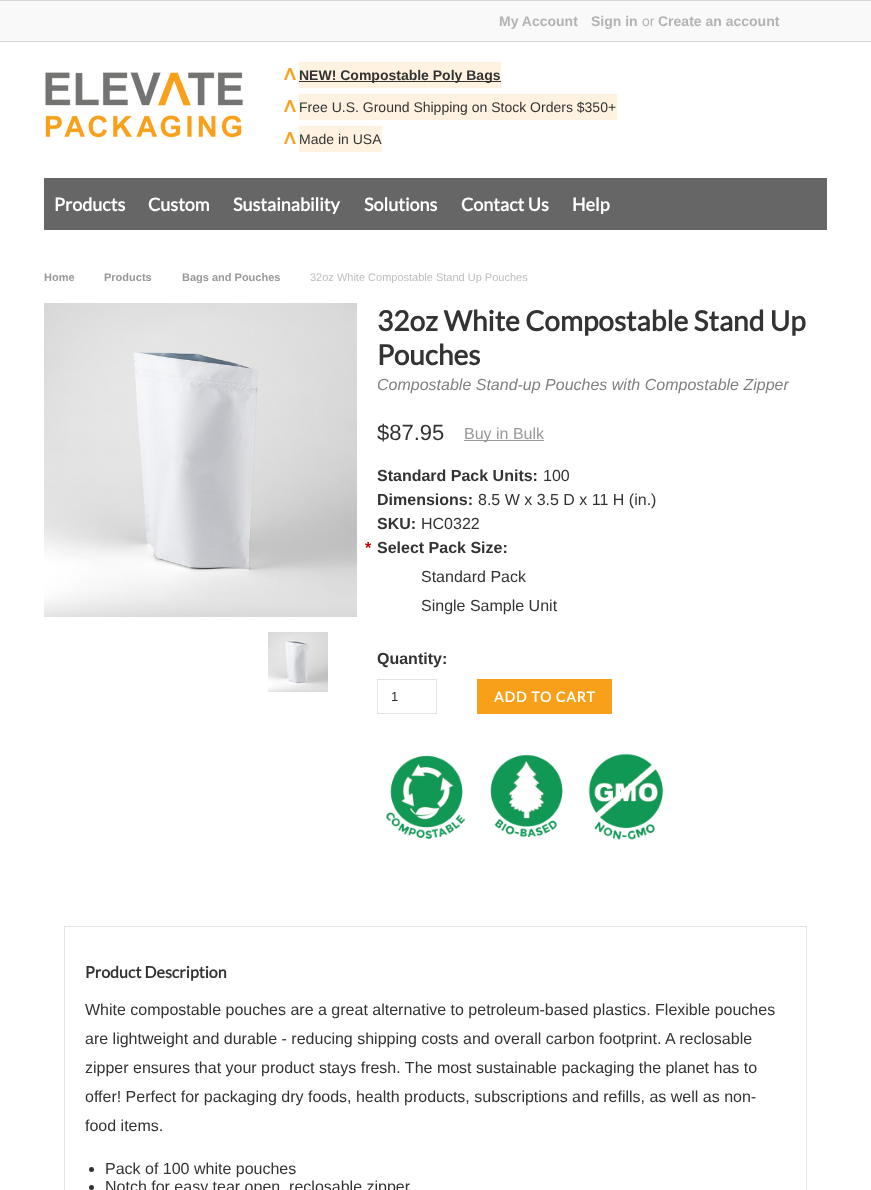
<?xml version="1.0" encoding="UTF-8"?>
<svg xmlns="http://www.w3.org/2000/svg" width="871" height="1190">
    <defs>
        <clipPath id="clip1"><rect x="44" y="271" width="783" height="12"/></clipPath>
    </defs>
    <rect width="100%" height="100%" fill="#FFFFFF"/>
    <rect x="0" y="1" width="871" height="40" fill="#F9F9F9"/>
    <rect x="0" y="0" width="871" height="1" fill="#D7D7D7"/>
    <rect x="0" y="41" width="871" height="1" fill="#D7D7D7"/>
    <text x="499" y="26" font-family="Liberation Sans" font-size="14" font-weight="700" fill="#B3B3B3">My Account</text>
    <text x="591" y="26" font-family="Liberation Sans" font-size="14" font-weight="700" fill="#B3B3B3">Sign in</text>
    <text x="642" y="26" font-family="Liberation Sans" font-size="14" fill="#B3B3B3">or</text>
    <text x="658" y="26" font-family="Liberation Sans" font-size="14" font-weight="700" fill="#B3B3B3">Create an account</text>
    <image x="45" y="72" width="198" height="66" href="img_01.png"/>
    <image x="284" y="68" width="12" height="12" href="img_02.png"/>
    <rect x="299" y="62" width="202" height="26" fill="#FFF2E0"/>
    <rect x="299" y="81" width="202" height="1" fill="#333333"/>
    <text x="299" y="80" font-family="Liberation Sans" font-size="14" font-weight="700" fill="#333333">NEW! Compostable Poly Bags</text>
    <image x="284" y="100" width="12" height="12" href="img_02.png"/>
    <rect x="299" y="94" width="318" height="26" fill="#FFF2E0"/>
    <text x="299" y="112" font-family="Liberation Sans" font-size="14" fill="#333333">Free U.S. Ground Shipping on Stock Orders $350+</text>
    <image x="284" y="132" width="12" height="12" href="img_02.png"/>
    <rect x="299" y="126" width="83" height="26" fill="#FFF2E0"/>
    <text x="299" y="144" font-family="Liberation Sans" font-size="14" fill="#333333">Made in USA</text>
    <rect x="44" y="178" width="783" height="52" fill="#666666"/>
    <text x="54" y="211" font-family="Lato" font-size="18" font-weight="700" fill="#FFFFFF">Products</text>
    <text x="148" y="211" font-family="Lato" font-size="18" font-weight="700" fill="#FFFFFF">Custom</text>
    <text x="233" y="211" font-family="Lato" font-size="18" font-weight="700" fill="#FFFFFF">Sustainability</text>
    <text x="364" y="211" font-family="Lato" font-size="18" font-weight="700" fill="#FFFFFF">Solutions</text>
    <text x="461" y="211" font-family="Lato" font-size="18" font-weight="700" fill="#FFFFFF">Contact Us</text>
    <text x="572" y="211" font-family="Lato" font-size="18" font-weight="700" fill="#FFFFFF">Help</text>
    <text x="44" y="281" font-family="Liberation Sans" font-size="11" font-weight="700" fill="#999999">Home</text>
    <text x="104" y="281" font-family="Liberation Sans" font-size="11" font-weight="700" fill="#999999">Products</text>
    <g clip-path="url(#clip1)">
        <text x="182" y="281" font-family="Liberation Sans" font-size="11" font-weight="700" fill="#999999">Bags and Pouches</text>
        <text x="310" y="281" font-family="Liberation Sans" font-size="11" fill="#BEBEBE">32oz White Compostable Stand Up Pouches</text>
    </g>
    <image x="44" y="303" width="313" height="314" href="img_03.png"/>
    <image x="268" y="632" width="60" height="60" href="img_04.png"/>
    <text font-family="Lato" font-size="28" font-weight="700" fill="#333333">
        <tspan x="377" y="331">32oz White Compostable Stand Up</tspan>
        <tspan x="377" y="365">Pouches</tspan>
    </text>
    <text x="377" y="390" font-family="Liberation Sans" font-size="16" font-style="italic" fill="#808080">Compostable Stand-up Pouches with Compostable Zipper</text>
    <text x="377" y="440" font-family="Liberation Sans" font-size="22" fill="#333333">$87.95</text>
    <rect x="464" y="440" width="80" height="1" fill="#999999"/>
    <text x="464" y="439" font-family="Liberation Sans" font-size="16" fill="#999999">Buy in Bulk</text>
    <text x="377" y="481" font-family="Liberation Sans" font-size="16" font-weight="700" fill="#333333">Standard Pack Units:</text>
    <text x="543" y="481" font-family="Liberation Sans" font-size="16" fill="#333333">100</text>
    <text x="377" y="505" font-family="Liberation Sans" font-size="16" font-weight="700" fill="#333333">Dimensions:</text>
    <text x="478" y="505" font-family="Liberation Sans" font-size="16" fill="#333333">8.5 W x 3.5 D x 11 H (in.)</text>
    <text x="377" y="529" font-family="Liberation Sans" font-size="16" font-weight="700" fill="#333333">SKU:</text>
    <text x="421" y="529" font-family="Liberation Sans" font-size="16" fill="#333333">HC0322</text>
    <text x="365" y="553" font-family="Liberation Sans" font-size="16" font-weight="700" fill="#BE0303">*</text>
    <text x="377" y="553" font-family="Liberation Sans" font-size="16" font-weight="700" fill="#333333">Select Pack Size:</text>
    <text font-family="Liberation Sans" font-size="16" fill="#333333">
        <tspan x="421" y="582">Standard Pack</tspan>
        <tspan x="421" y="611">Single Sample Unit</tspan>
    </text>
    <text x="377" y="664" font-family="Liberation Sans" font-size="16" font-weight="700" fill="#333333">Quantity:</text>
    <rect x="377.5" y="679.5" width="59" height="34" fill="none" stroke="#E3E3E3"/>
    <text x="391" y="701" font-family="Liberation Sans" font-size="13" fill="#333333">1</text>
    <rect x="477" y="679" width="135" height="35" fill="#F9A01B"/>
    <text x="494" y="702" font-family="Lato" font-size="14" font-weight="700" letter-spacing="1" fill="#FFFFFF">ADD TO CART</text>
    <image x="386" y="755" width="80" height="84" href="img_05.png"/>
    <image x="490" y="754" width="73" height="84" href="img_06.png"/>
    <image x="588" y="753" width="75" height="87" href="img_07.png"/>
    <rect x="64.5" y="926.5" width="742" height="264" fill="none" stroke="#E3E3E3"/>
    <text x="85" y="978" font-family="Lato" font-size="16" font-weight="700" fill="#333333">Product Description</text>
    <text font-family="Liberation Sans" font-size="16" fill="#333333">
        <tspan x="85" y="1015">White compostable pouches are a great alternative to petroleum-based plastics. Flexible pouches</tspan>
        <tspan x="85" y="1044">are lightweight and durable - reducing shipping costs and overall carbon footprint. A reclosable</tspan>
        <tspan x="85" y="1073">zipper ensures that your product stays fresh. The most sustainable packaging the planet has to</tspan>
        <tspan x="85" y="1102">offer! Perfect for packaging dry foods, health products, subscriptions and refills, as well as non-</tspan>
        <tspan x="85" y="1131">food items.</tspan>
    </text>
    <circle cx="91.5" cy="1169.5" r="2.5" fill="#333333"/>
    <text x="105" y="1174" font-family="Liberation Sans" font-size="16" fill="#333333">Pack of 100 white pouches</text>
    <circle cx="91.5" cy="1187.5" r="2.5" fill="#333333"/>
    <text x="105" y="1192" font-family="Liberation Sans" font-size="16" fill="#333333">Notch for easy tear open, reclosable zipper</text>
</svg>
